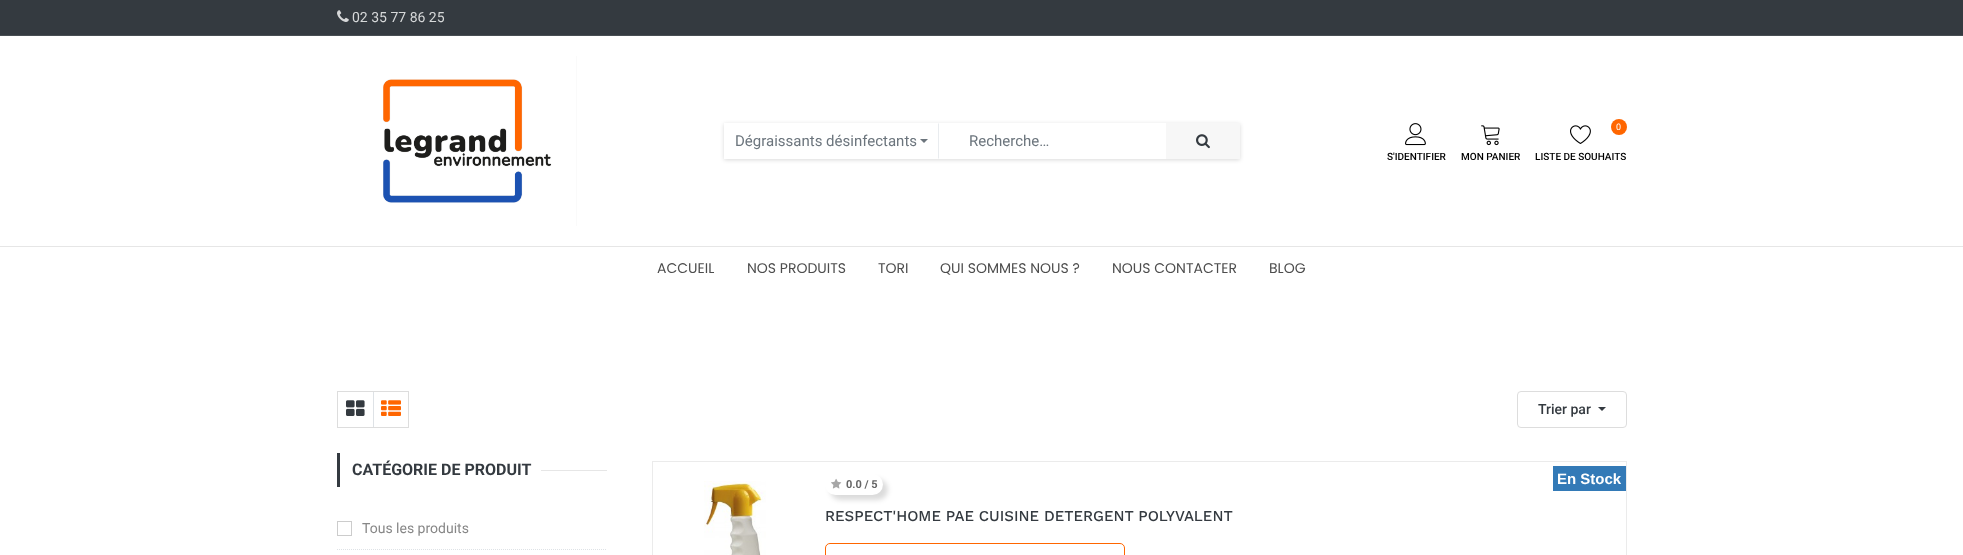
<?xml version="1.0" encoding="UTF-8"?>
<svg xmlns="http://www.w3.org/2000/svg" width="1963" height="555">
    <defs>
        <clipPath id="clip1"><path d="M 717 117 H 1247 V 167 H 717 Z M 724 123 H 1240 V 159 H 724 Z" clip-rule="evenodd"/></clipPath>
        <filter id="blur1" x="-50%" y="-200%" width="200%" height="500%"><feGaussianBlur stdDeviation="2"/></filter>
        <filter id="blur2" x="-50%" y="-200%" width="200%" height="500%"><feGaussianBlur stdDeviation="2.5"/></filter>
    </defs>
    <rect width="100%" height="100%" fill="#FFFFFF"/>
    <rect x="0" y="0" width="1963" height="35" fill="#343A40"/>
    <rect x="0" y="35" width="1963" height="1" fill="#484E53"/>
    <image x="337" y="10" width="12" height="12" href="img_01.png"/>
    <text x="352" y="22" font-family="Roboto" font-size="14" fill="#D6D8D9">02 35 77 86 25</text>
    <rect x="0" y="246" width="1963" height="1" fill="#E6E6E6"/>
    <image x="383" y="56" width="194" height="170" href="img_02.png"/>
    <g clip-path="url(#clip1)">
        <rect x="724" y="124" width="516" height="36" fill="#000000" fill-opacity="0.15" filter="url(#blur1)"/>
    </g>
    <path d="M 939 123 V 159 L 938 158 V 124 Z" fill="#E9ECEF"/>
    <text x="735" y="146" font-family="Roboto" font-size="15" fill="#6C757D">Dégraissants désinfectants</text>
    <path d="M 920 139 H 928 L 924 143 Z" fill="#6C757D"/>
    <text x="969" y="146" font-family="Roboto" font-size="15" fill="#6C757D">Recherche…</text>
    <rect x="1166" y="123" width="74" height="36" fill="#F7F7F7"/>
    <image x="1196" y="134" width="14" height="15" href="img_03.png"/>
    <image x="1405" y="123" width="21" height="23" href="img_04.png"/>
    <text x="1387" y="160" font-family="Roboto" font-size="10" font-weight="500" fill="#000000">S'IDENTIFIER</text>
    <image x="1481" y="125" width="19" height="21" href="img_05.png"/>
    <text x="1461" y="160" font-family="Roboto" font-size="10" font-weight="500" fill="#000000">MON PANIER</text>
    <image x="1570" y="125" width="21" height="19" href="img_06.png"/>
    <circle cx="1619" cy="127" r="8" fill="#FF6600"/>
    <text x="1616" y="130" font-family="Roboto" font-size="9" fill="#FFFFFF">0</text>
    <text x="1535" y="160" font-family="Roboto" font-size="10" font-weight="500" fill="#000000">LISTE DE SOUHAITS</text>
    <text x="657" y="273" font-family="Poppins" font-size="14" fill="#4D4D4D">ACCUEIL</text>
    <text x="747" y="273" font-family="Poppins" font-size="14" fill="#4D4D4D">NOS PRODUITS</text>
    <text x="878" y="273" font-family="Poppins" font-size="14" fill="#4D4D4D">TORI</text>
    <text x="940" y="273" font-family="Poppins" font-size="14" fill="#4D4D4D">QUI SOMMES NOUS ?</text>
    <text x="1112" y="273" font-family="Poppins" font-size="14" fill="#4D4D4D">NOUS CONTACTER</text>
    <text x="1269" y="273" font-family="Poppins" font-size="14" fill="#4D4D4D">BLOG</text>
    <rect x="337.5" y="391.5" width="71" height="36" fill="none" stroke="#DDDDDD"/>
    <image x="346" y="400" width="19" height="16" href="img_07.png"/>
    <rect x="373" y="392" width="1" height="35" fill="#DEE2E6"/>
    <image x="381" y="400" width="20" height="16" href="img_08.png"/>
    <rect x="1517.5" y="391.5" width="109" height="36" rx="3.5" fill="none" stroke="#DDDDDD"/>
    <text x="1538" y="414" font-family="Roboto" font-size="14" font-weight="500" fill="#343A40">Trier par</text>
    <path d="M 1598 407 H 1606 L 1602 411 Z" fill="#343A40"/>
    <rect x="337" y="453" width="3" height="34" fill="#343A40"/>
    <text x="352" y="475" font-family="Roboto" font-size="16" font-weight="700" fill="#343A40">CATÉGORIE DE PRODUIT</text>
    <rect x="541" y="470" width="66" height="1" fill="#E6E6E6"/>
    <path d="M 337 549.5 H 607" fill="none" stroke="#DEE2E6" stroke-dasharray="1 1"/>
    <rect x="337.5" y="521.5" width="14" height="14" fill="none" stroke="#CCCCCC"/>
    <text x="362" y="533" font-family="Roboto" font-size="14" fill="#878787">Tous les produits</text>
    <rect x="652.5" y="461.5" width="974" height="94" fill="none" stroke="#EBEBEB"/>
    <image x="704" y="481" width="62" height="74" href="img_09.png"/>
    <rect x="830" y="479" width="58" height="21" rx="10.5" fill="#000000" fill-opacity="0.14" filter="url(#blur2)"/>
    <rect x="825" y="474" width="58" height="21" rx="10.5" fill="#FFFFFF"/>
    <image x="831" y="478" width="11" height="11" href="img_10.png"/>
    <text x="846" y="488" font-family="Roboto" font-size="11" font-weight="700" fill="#666666">0.0 / 5</text>
    <text x="825" y="521" font-family="Work Sans" font-size="15" font-weight="500" fill="#343A40">RESPECT'HOME PAE CUISINE DETERGENT POLYVALENT</text>
    <rect x="825.5" y="543.5" width="299" height="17" rx="4.5" fill="none" stroke="#FF6600"/>
    <rect x="1553" y="466" width="73" height="25" fill="#337AB7"/>
    <text x="1557" y="484" font-family="Liberation Sans" font-size="15" font-weight="700" fill="#FFFFFF">En Stock</text>
</svg>
